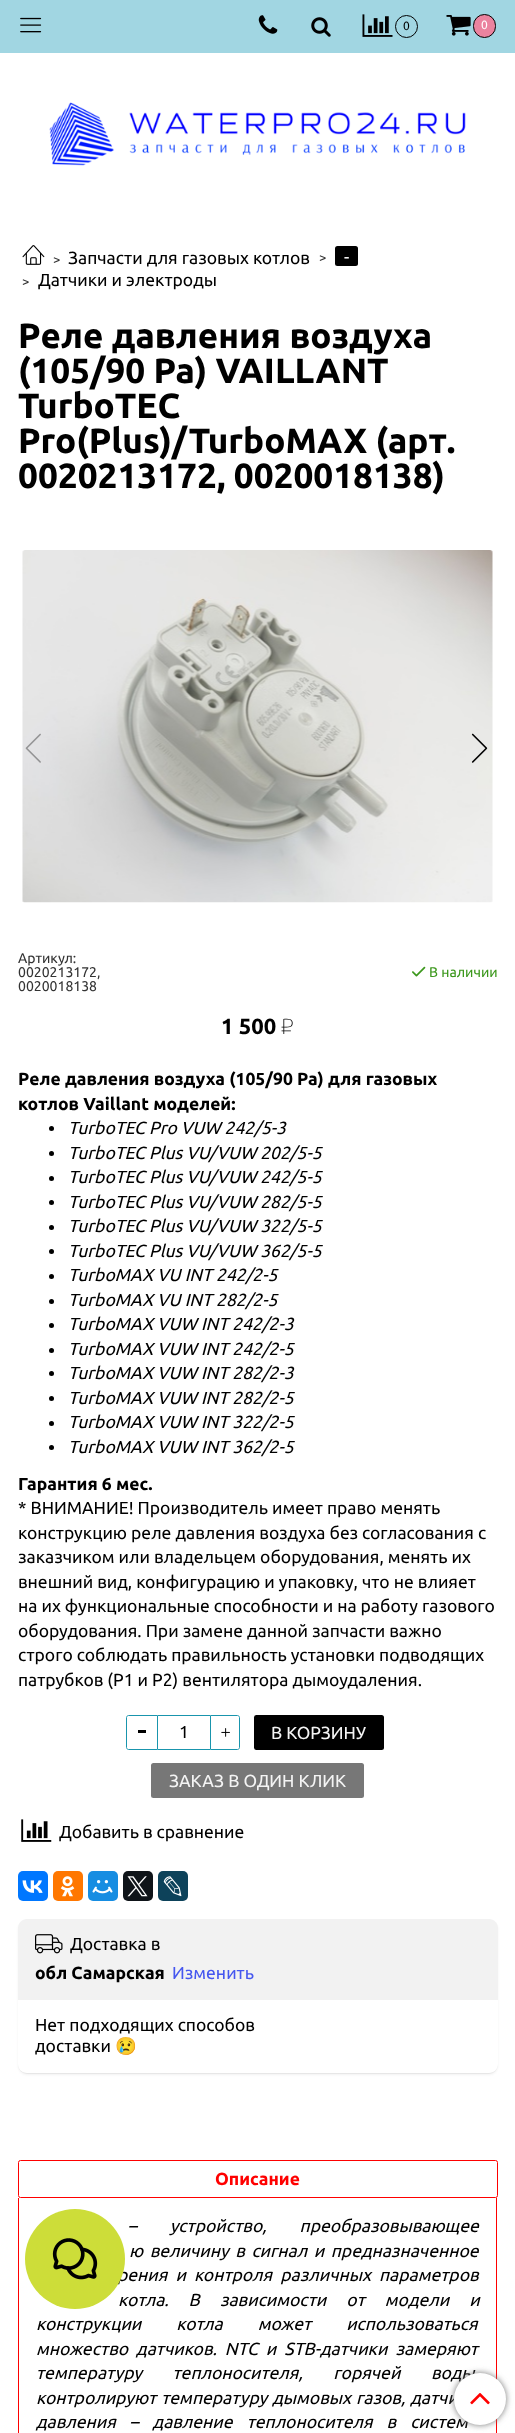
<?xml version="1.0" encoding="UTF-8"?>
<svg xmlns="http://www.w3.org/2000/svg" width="515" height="2433">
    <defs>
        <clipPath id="clip1"><path d="M 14 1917 H 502 V 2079 H 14 Z M 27 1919 H 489 C 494 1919 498 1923 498 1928 V 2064 C 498 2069 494 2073 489 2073 H 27 C 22 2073 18 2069 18 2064 V 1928 C 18 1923 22 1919 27 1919 Z" clip-rule="evenodd"/></clipPath>
        <filter id="blur1" x="-50%" y="-200%" width="200%" height="500%"><feGaussianBlur stdDeviation="1"/></filter>
        <clipPath id="clip2"><path d="M 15 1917 H 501 V 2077 H 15 Z M 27 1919 H 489 C 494 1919 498 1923 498 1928 V 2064 C 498 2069 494 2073 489 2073 H 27 C 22 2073 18 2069 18 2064 V 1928 C 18 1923 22 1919 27 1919 Z" clip-rule="evenodd"/></clipPath>
        <filter id="blur2" x="-50%" y="-200%" width="200%" height="500%"><feGaussianBlur stdDeviation="0.5"/></filter>
        <filter id="blur3" x="-50%" y="-200%" width="200%" height="500%"><feGaussianBlur stdDeviation="3"/></filter>
    </defs>
    <rect width="100%" height="100%" fill="#FFFFFF"/>
    <rect x="0" y="0" width="515" height="53" fill="#A1D6E2"/>
    <image x="20" y="17" width="22" height="16" href="img_01.png"/>
    <image x="258" y="15" width="20" height="19" href="img_02.png"/>
    <image x="311" y="17" width="20" height="20" href="img_03.png"/>
    <image x="362" y="14" width="31" height="23" href="img_04.png"/>
    <circle cx="406.5" cy="26.5" r="11" fill="none" stroke="#000000"/>
    <text x="403" y="30" font-family="Ubuntu" font-size="12" fill="#000000">0</text>
    <image x="446" y="15" width="25" height="21" href="img_05.png"/>
    <rect x="473.5" y="14.5" width="22" height="23" rx="11" fill="#EB839F" stroke="#000000"/>
    <text x="481" y="29" font-family="Ubuntu" font-size="12" fill="#FFFFFF">0</text>
    <image x="49" y="102" width="417" height="64" href="img_06.png"/>
    <image x="22" y="245" width="23" height="20" href="img_07.png"/>
    <text x="53" y="264" font-family="Ubuntu" font-size="13" fill="#333333">&gt;</text>
    <text x="68" y="264" font-family="Ubuntu" font-size="17.5" fill="#000000">Запчасти для газовых котлов</text>
    <text x="319" y="262" font-family="Ubuntu" font-size="13" fill="#333333">&gt;</text>
    <rect x="335" y="246" width="23" height="20" rx="2.5" fill="#000000"/>
    <text x="344" y="263" font-family="Ubuntu" font-size="17.5" fill="#F4F4F4">-</text>
    <text x="22" y="286" font-family="Ubuntu" font-size="13" fill="#333333">&gt;</text>
    <text x="38" y="286" font-family="Ubuntu" font-size="17.5" fill="#000000">Датчики и электроды</text>
    <text font-family="Ubuntu" font-size="35" font-weight="700" fill="#000000">
        <tspan x="18" y="348">Реле давления воздуха</tspan>
        <tspan x="18" y="383">(105/90 Pa) VAILLANT</tspan>
        <tspan x="18" y="418">TurboTEC</tspan>
        <tspan x="18" y="453">Pro(Plus)/TurboMAX (арт.</tspan>
        <tspan x="18" y="488">0020213172, 0020018138)</tspan>
    </text>
    <image x="22" y="550" width="471" height="353" href="img_08.png"/>
    <image x="25" y="733" width="16" height="30" href="img_09.png"/>
    <image x="471" y="733" width="17" height="30" href="img_10.png"/>
    <text font-family="Ubuntu" font-size="14" fill="#333333">
        <tspan x="18" y="963">Артикул:</tspan>
        <tspan x="18" y="977">0020213172,</tspan>
        <tspan x="18" y="991">0020018138</tspan>
    </text>
    <image x="412" y="966" width="14" height="11" href="img_11.png"/>
    <text x="429" y="977" font-family="Ubuntu" font-size="14" fill="#3C981D">В наличии</text>
    <text x="221" y="1034" font-family="Ubuntu" font-size="22" font-weight="700" fill="#000000">1 500</text>
    <text x="281" y="1034" font-family="Ubuntu" font-size="22" font-weight="100" fill="#000000">₽</text>
    <text font-family="Ubuntu" font-size="17.5" font-weight="700" fill="#000000">
        <tspan x="18" y="1085">Реле давления воздуха (105/90 Pa) для газовых</tspan>
        <tspan x="18" y="1110">котлов Vaillant моделей:</tspan>
    </text>
    <circle cx="51.5" cy="1128.5" r="2.5" fill="#000000"/>
    <text x="68" y="1134" font-family="Ubuntu" font-size="17.5" font-style="italic" fill="#000000">TurboTEC Pro VUW 242/5-3</text>
    <circle cx="51.5" cy="1153.5" r="2.5" fill="#000000"/>
    <text x="68" y="1159" font-family="Ubuntu" font-size="17.5" font-style="italic" fill="#000000">TurboTEC Plus VU/VUW 202/5-5</text>
    <circle cx="51.5" cy="1178.5" r="2.5" fill="#000000"/>
    <text x="68" y="1183" font-family="Ubuntu" font-size="17.5" font-style="italic" fill="#000000">TurboTEC Plus VU/VUW 242/5-5</text>
    <circle cx="51.5" cy="1202.5" r="2.5" fill="#000000"/>
    <text x="68" y="1208" font-family="Ubuntu" font-size="17.5" font-style="italic" fill="#000000">TurboTEC Plus VU/VUW 282/5-5</text>
    <circle cx="51.5" cy="1227.5" r="2.5" fill="#000000"/>
    <text x="68" y="1232" font-family="Ubuntu" font-size="17.5" font-style="italic" fill="#000000">TurboTEC Plus VU/VUW 322/5-5</text>
    <circle cx="51.5" cy="1251.5" r="2.5" fill="#000000"/>
    <text x="68" y="1257" font-family="Ubuntu" font-size="17.5" font-style="italic" fill="#000000">TurboTEC Plus VU/VUW 362/5-5</text>
    <circle cx="51.5" cy="1276.5" r="2.5" fill="#000000"/>
    <text x="68" y="1281" font-family="Ubuntu" font-size="17.5" font-style="italic" fill="#000000">TurboMAX VU INT 242/2-5</text>
    <circle cx="51.5" cy="1301.5" r="2.5" fill="#000000"/>
    <text x="68" y="1306" font-family="Ubuntu" font-size="17.5" font-style="italic" fill="#000000">TurboMAX VU INT 282/2-5</text>
    <circle cx="51.5" cy="1325.5" r="2.5" fill="#000000"/>
    <text x="68" y="1330" font-family="Ubuntu" font-size="17.5" font-style="italic" fill="#000000">TurboMAX VUW INT 242/2-3</text>
    <circle cx="51.5" cy="1350.5" r="2.5" fill="#000000"/>
    <text x="68" y="1355" font-family="Ubuntu" font-size="17.5" font-style="italic" fill="#000000">TurboMAX VUW INT 242/2-5</text>
    <circle cx="51.5" cy="1373.5" r="2.5" fill="#000000"/>
    <text x="68" y="1379" font-family="Ubuntu" font-size="17.5" font-style="italic" fill="#000000">TurboMAX VUW INT 282/2-3</text>
    <circle cx="51.5" cy="1398.5" r="2.5" fill="#000000"/>
    <text x="68" y="1404" font-family="Ubuntu" font-size="17.5" font-style="italic" fill="#000000">TurboMAX VUW INT 282/2-5</text>
    <circle cx="51.5" cy="1423.5" r="2.5" fill="#000000"/>
    <text x="68" y="1428" font-family="Ubuntu" font-size="17.5" font-style="italic" fill="#000000">TurboMAX VUW INT 322/2-5</text>
    <circle cx="51.5" cy="1447.5" r="2.5" fill="#000000"/>
    <text x="68" y="1453" font-family="Ubuntu" font-size="17.5" font-style="italic" fill="#000000">TurboMAX VUW INT 362/2-5</text>
    <text x="18" y="1490" font-family="Ubuntu" font-size="17.5" font-weight="700" fill="#000000">Гарантия 6 мес.</text>
    <text font-family="Ubuntu" font-size="17.5" fill="#000000">
        <tspan x="18" y="1514">* ВНИМАНИЕ! Производитель имеет право менять</tspan>
        <tspan x="18" y="1539">конструкцию реле давления воздуха без согласования с</tspan>
        <tspan x="18" y="1563">заказчиком или владельцем оборудования, менять их</tspan>
        <tspan x="18" y="1588">внешний вид, конфигурацию и упаковку, что не влияет</tspan>
        <tspan x="18" y="1612">на их функциональные способности и на работу газового</tspan>
        <tspan x="18" y="1637">оборудования. При замене данной запчасти важно</tspan>
        <tspan x="18" y="1661">строго соблюдать правильность установки подводящих</tspan>
        <tspan x="18" y="1686">патрубков (P1 и P2) вентилятора дымоудаления.</tspan>
    </text>
    <path d="M 128.5 1715.5 H 157.5 V 1749.5 H 128.5 C 127.5 1749.5 126.5 1748.5 126.5 1747.5 V 1717.5 C 126.5 1716.5 127.5 1715.5 128.5 1715.5 Z" fill="none" stroke="#1995AD"/>
    <rect x="138" y="1730" width="8" height="3" fill="#000000"/>
    <rect x="158" y="1715" width="52" height="1" fill="#1995AD"/>
    <rect x="158" y="1749" width="52" height="1" fill="#1995AD"/>
    <text x="179" y="1738" font-family="Ubuntu" font-size="17.5" fill="#000000">1</text>
    <path d="M 210.5 1715.5 H 237.5 C 238.5 1715.5 239.5 1716.5 239.5 1717.5 V 1747.5 C 239.5 1748.5 238.5 1749.5 237.5 1749.5 H 210.5 Z" fill="none" stroke="#1995AD"/>
    <image x="221" y="1728" width="9" height="9" href="img_12.png"/>
    <rect x="254" y="1715" width="130" height="35" rx="2.5" fill="#000000"/>
    <text x="271" y="1739" font-family="Ubuntu" font-size="17.5" fill="#F4F4F4">В КОРЗИНУ</text>
    <rect x="151" y="1763" width="213" height="35" rx="2.5" fill="#777777"/>
    <text x="169" y="1787" font-family="Ubuntu" font-size="17.5" fill="#F4F4F4">ЗАКАЗ В ОДИН КЛИК</text>
    <image x="21" y="1819" width="31" height="23" href="img_13.png"/>
    <text x="59" y="1838" font-family="Ubuntu" font-size="17.5" fill="#000000">Добавить в сравнение</text>
    <rect x="18" y="1871" width="30" height="30" rx="5" fill="#0077FF"/>
    <image x="22" y="1880" width="21" height="13" href="img_14.png"/>
    <rect x="53" y="1871" width="30" height="30" rx="5" fill="#FF7700"/>
    <image x="60" y="1876" width="15" height="21" href="img_15.png"/>
    <rect x="88" y="1871" width="30" height="30" rx="5" fill="#168DE2"/>
    <image x="92" y="1880" width="21" height="14" href="img_16.png"/>
    <rect x="123" y="1871" width="30" height="30" rx="5" fill="#0F1419"/>
    <image x="127" y="1876" width="21" height="21" href="img_17.png"/>
    <rect x="158" y="1871" width="30" height="30" rx="5" fill="#0D425A"/>
    <image x="163" y="1876" width="19" height="21" href="img_18.png"/>
    <g clip-path="url(#clip1)">
        <rect x="18" y="1921" width="480" height="154" rx="9" fill="#000000" fill-opacity="0.05" filter="url(#blur1)"/>
    </g>
    <g clip-path="url(#clip2)">
        <rect x="18" y="1920" width="480" height="154" rx="9" fill="#000000" fill-opacity="0.05" filter="url(#blur2)"/>
    </g>
    <path d="M 27 1919 H 489 C 494 1919 498 1923 498 1928 V 2000 H 18 V 1928 C 18 1923 22 1919 27 1919 Z" fill="#F2F2F2"/>
    <image x="35" y="1934" width="28" height="20" href="img_19.png"/>
    <text x="70" y="1950" font-family="Ubuntu" font-size="17.5" fill="#000000">Доставка в</text>
    <text x="35" y="1979" font-family="Ubuntu" font-size="17.5" font-weight="700" fill="#000000">обл Самарская</text>
    <text x="172" y="1979" font-family="Ubuntu" font-size="17.5" fill="#4657EF">Изменить</text>
    <text font-family="Ubuntu" font-size="17.5" fill="#000000">
        <tspan x="35" y="2031">Нет подходящих способов</tspan>
        <tspan x="35" y="2052">доставки</tspan>
    </text>
    <text x="115" y="2052" font-family="Noto Color Emoji" font-size="17.5" fill="#000000">😢</text>
    <rect x="18.5" y="2160.5" width="479" height="37" rx="2" fill="none" stroke="#FF0000"/>
    <text x="215" y="2185" font-family="Ubuntu" font-size="17.5" font-weight="700" fill="#FF0000">Описание</text>
    <rect x="496" y="2198" width="1" height="235" fill="#FF0000"/>
    <rect x="18" y="2198" width="1" height="235" fill="#FF0000"/>
    <text x="128" y="2232" word-spacing="29" font-family="Ubuntu" font-size="17.5" font-style="italic" fill="#000000">– устройство, преобразовывающее</text>
    <text x="129" y="2257" word-spacing="2.5" font-family="Ubuntu" font-size="17.5" font-style="italic" fill="#000000">ю величину в сигнал и предназначенное</text>
    <text x="117" y="2281" word-spacing="4" font-family="Ubuntu" font-size="17.5" font-style="italic" fill="#000000">рения и контроля различных параметров</text>
    <text x="118" y="2306" word-spacing="16" font-family="Ubuntu" font-size="17.5" font-style="italic" fill="#000000">котла. В зависимости от модели и</text>
    <text font-family="Ubuntu" font-size="17.5" font-style="italic" fill="#000000">
        <tspan x="36" y="2330" word-spacing="31">конструкции котла может использоваться</tspan>
        <tspan x="36" y="2355" word-spacing="4">множество датчиков. NTC и STB-датчики замеряют</tspan>
        <tspan x="36" y="2379" word-spacing="26.5">температуру теплоносителя, горячей воды</tspan>
        <tspan x="36" y="2404" word-spacing="1">контролируют температуру дымовых газов, датчи</tspan>
        <tspan x="36" y="2428" word-spacing="10">давления – давление теплоносителя в систем</tspan>
    </text>
    <rect x="454" y="2373" width="52" height="52" rx="26" fill="#777777" filter="url(#blur3)"/>
    <circle cx="480" cy="2399" r="26" fill="#FFFFFF"/>
    <image x="470" y="2393" width="20" height="12" href="img_20.png"/>
    <circle cx="75" cy="2259" r="50" fill="#CDDD39"/>
    <image x="52" y="2238" width="46" height="42" href="img_21.png"/>
</svg>
